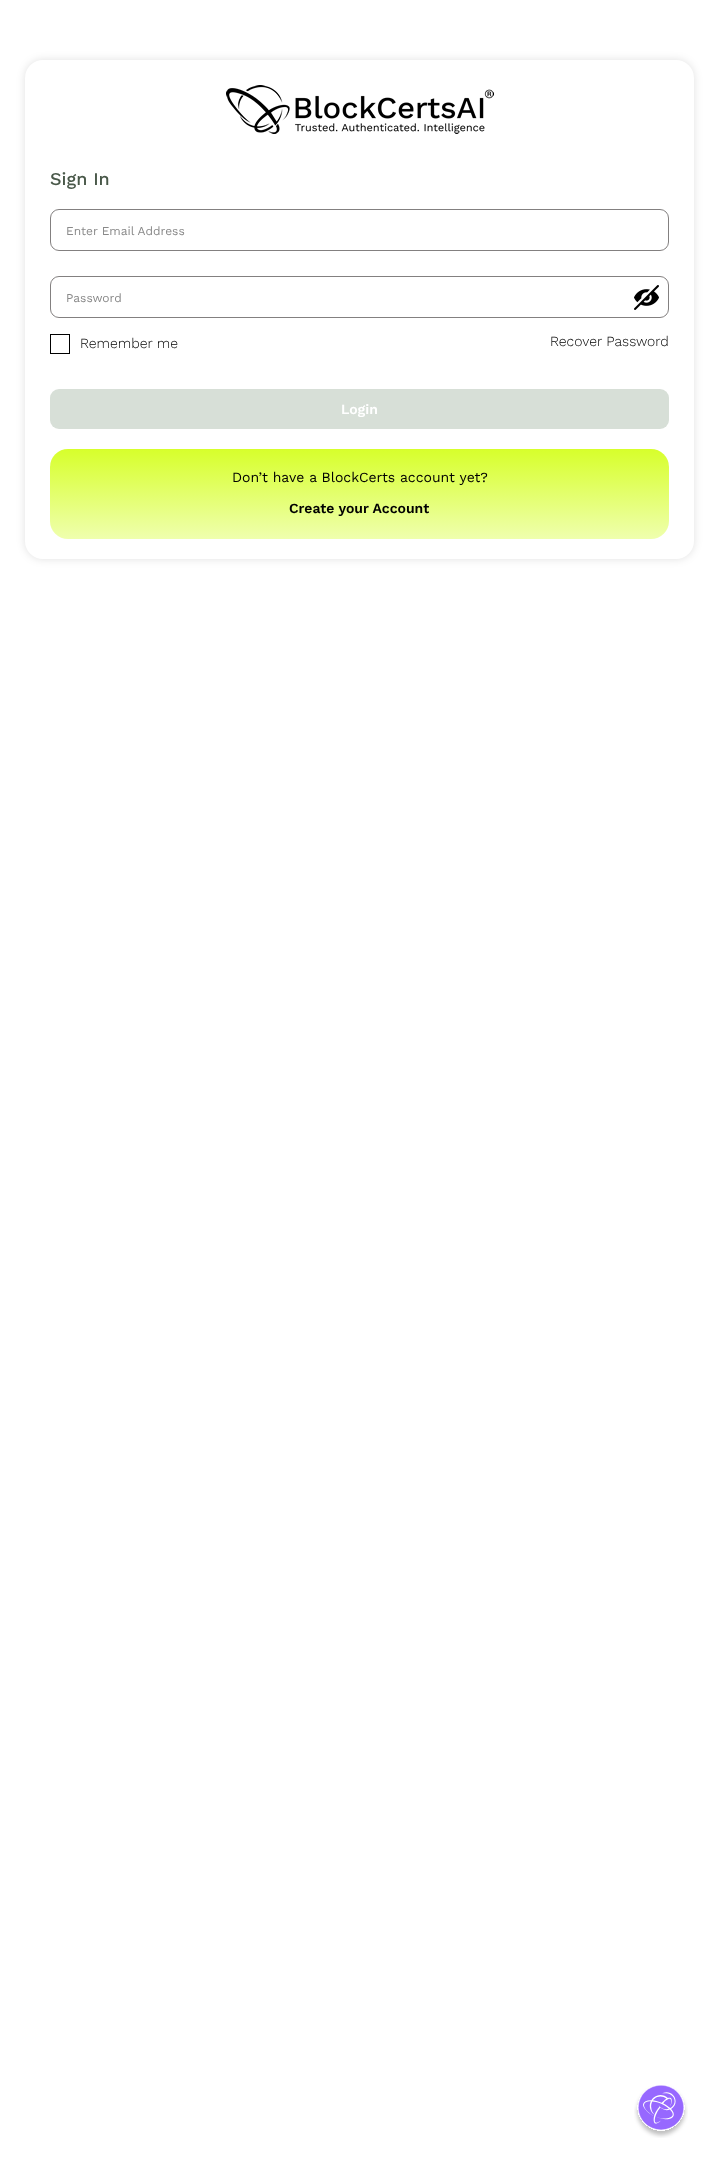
<?xml version="1.0" encoding="UTF-8"?>
<svg xmlns="http://www.w3.org/2000/svg" width="719" height="2162">
    <defs>
        <filter id="blur1" x="-50%" y="-200%" width="200%" height="500%"><feGaussianBlur stdDeviation="4.5"/></filter>
        <linearGradient id="g1" gradientUnits="userSpaceOnUse" x1="360" y1="449" x2="360" y2="539"><stop offset="0" stop-color="#D7FF2B"/><stop offset="1" stop-color="#EFFFAE"/></linearGradient>
    </defs>
    <rect width="100%" height="100%" fill="#FFFFFF"/>
    <rect x="25" y="60" width="669" height="499" rx="18" fill="#000000" fill-opacity="0.12" filter="url(#blur1)"/>
    <rect x="25" y="60" width="669" height="499" rx="18" fill="#FFFFFF"/>
    <image x="226" y="85" width="268" height="49" href="img_01.png"/>
    <text x="50" y="185" font-family="Work Sans" font-size="18" font-weight="500" fill="#495849">Sign In</text>
    <rect x="50.5" y="209.5" width="618" height="41" rx="8.5" fill="none" stroke="#838080"/>
    <text x="66" y="235" font-family="Work Sans" font-size="12" fill="#898989">Enter Email Address</text>
    <rect x="50.5" y="276.5" width="618" height="41" rx="8.5" fill="none" stroke="#838080"/>
    <text x="66" y="302" font-family="Work Sans" font-size="12" fill="#898989">Password</text>
    <image x="634" y="285" width="25" height="25" href="img_02.png"/>
    <rect x="50.5" y="334.5" width="19" height="19" fill="none" stroke="#000000"/>
    <text x="80" y="348" font-family="Work Sans" font-size="14" font-weight="300" fill="#000000">Remember me</text>
    <text x="550" y="346" font-family="Work Sans" font-size="14" font-weight="300" fill="#000000">Recover Password</text>
    <rect x="50" y="389" width="619" height="40" rx="9" fill="#D7DFD7"/>
    <text x="341" y="414" font-family="Work Sans" font-size="14" font-weight="600" fill="#FFFFFF">Login</text>
    <rect x="50" y="449" width="619" height="90" rx="18" fill="url(#g1)"/>
    <text x="232" y="482" font-family="Work Sans" font-size="14" fill="#000000">Don’t have a BlockCerts account yet?</text>
    <text x="289" y="513" font-family="Work Sans" font-size="14" font-weight="600" fill="#000000">Create your Account</text>
    <image x="634" y="2085" width="54" height="53" href="img_03.png"/>
</svg>
